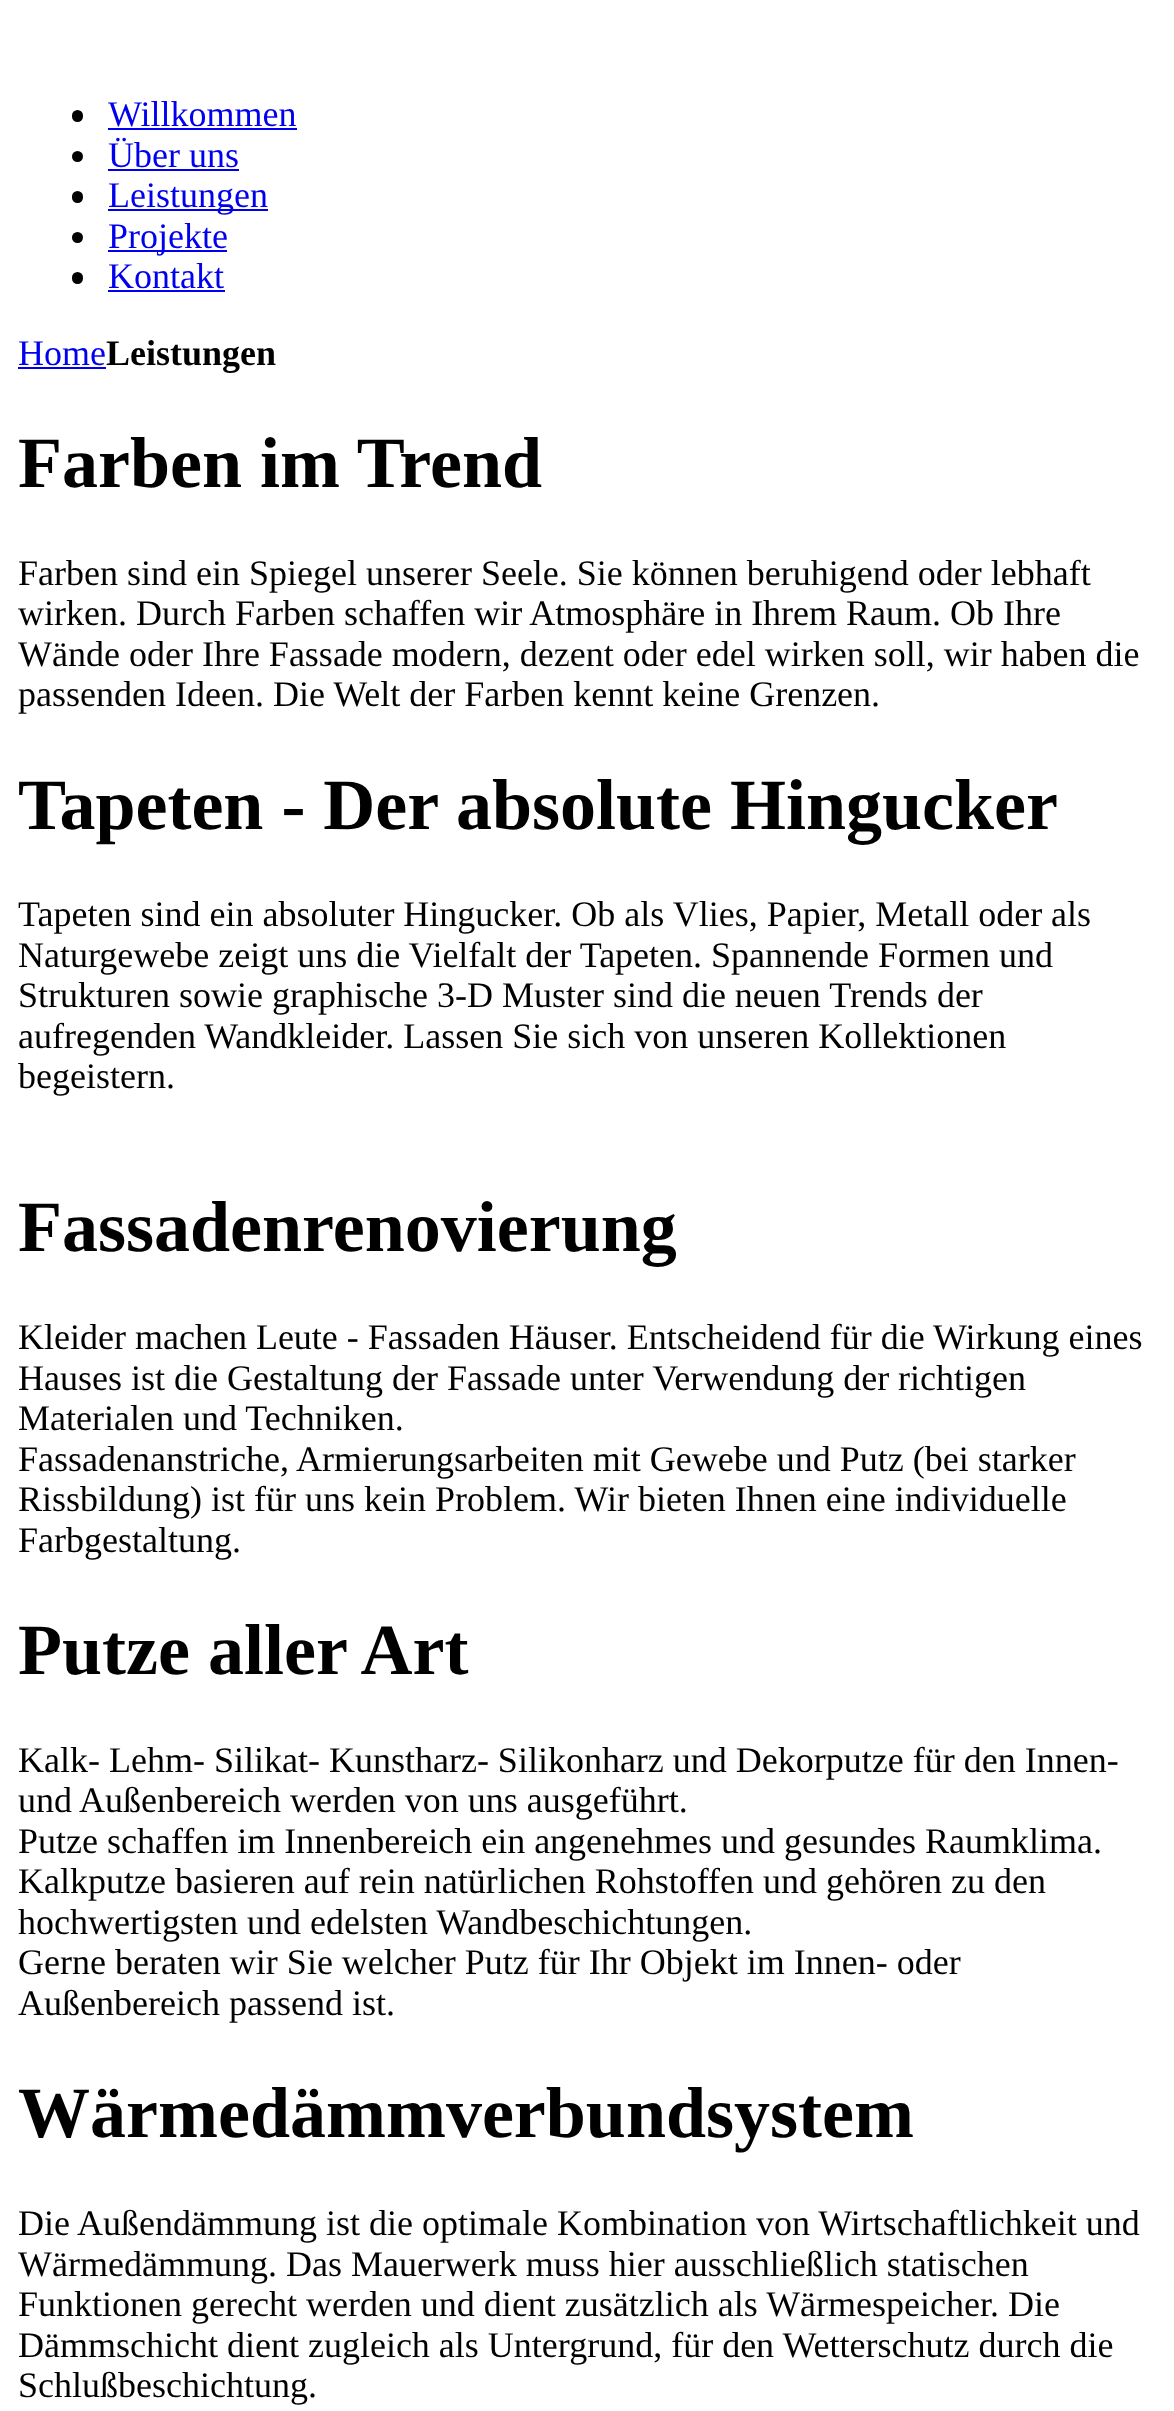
<?xml version="1.0" encoding="UTF-8"?>
<svg xmlns="http://www.w3.org/2000/svg" width="1174" height="2411">
    <rect width="100%" height="100%" fill="#FFFFFF"/>
    <rect x="72" y="110" width="11" height="12" rx="5.5" fill="#000000"/>
    <text x="108" y="126" font-family="Liberation Serif" font-size="36" fill="#0000EE">Willkommen</text>
    <rect x="108" y="128" width="189" height="2" fill="#0000EE"/>
    <circle cx="77.5" cy="156.5" r="5.5" fill="#000000"/>
    <text x="108" y="167" font-family="Liberation Serif" font-size="36" fill="#0000EE">Über uns</text>
    <rect x="108" y="169" width="131" height="2" fill="#0000EE"/>
    <rect x="72" y="191" width="11" height="12" rx="5.5" fill="#000000"/>
    <rect x="108" y="209" width="160" height="2" fill="#0000EE"/>
    <text x="108" y="207" font-family="Liberation Serif" font-size="36" fill="#0000EE">Leistungen</text>
    <circle cx="77.5" cy="237.5" r="5.5" fill="#000000"/>
    <rect x="108" y="250" width="119" height="2" fill="#0000EE"/>
    <text x="108" y="248" font-family="Liberation Serif" font-size="36" fill="#0000EE">Projekte</text>
    <rect x="72" y="272" width="11" height="12" rx="5.5" fill="#000000"/>
    <text x="108" y="288" font-family="Liberation Serif" font-size="36" fill="#0000EE">Kontakt</text>
    <rect x="108" y="290" width="117" height="2" fill="#0000EE"/>
    <text x="18" y="365" font-family="Liberation Serif" font-size="36" fill="#0000EE">Home</text>
    <rect x="18" y="367" width="88" height="2" fill="#0000EE"/>
    <text x="106" y="365" font-family="Liberation Serif" font-size="36" font-weight="700" fill="#000000">Leistungen</text>
    <text x="18" y="487" font-family="Liberation Serif" font-size="72" font-weight="700" fill="#000000">Farben im Trend</text>
    <text font-family="Liberation Serif" font-size="36" fill="#000000">
        <tspan x="18" y="585">Farben sind ein Spiegel unserer Seele. Sie können beruhigend oder lebhaft</tspan>
        <tspan x="18" y="625">wirken. Durch Farben schaffen wir Atmosphäre in Ihrem Raum. Ob Ihre</tspan>
        <tspan x="18" y="666">Wände oder Ihre Fassade modern, dezent oder edel wirken soll, wir haben die</tspan>
        <tspan x="18" y="706">passenden Ideen. Die Welt der Farben kennt keine Grenzen.</tspan>
    </text>
    <text x="18" y="829" font-family="Liberation Serif" font-size="72" font-weight="700" fill="#000000">Tapeten - Der absolute Hingucker</text>
    <text font-family="Liberation Serif" font-size="36" fill="#000000">
        <tspan x="18" y="926">Tapeten sind ein absoluter Hingucker. Ob als Vlies, Papier, Metall oder als</tspan>
        <tspan x="18" y="967">Naturgewebe zeigt uns die Vielfalt der Tapeten. Spannende Formen und</tspan>
        <tspan x="18" y="1007">Strukturen sowie graphische 3-D Muster sind die neuen Trends der</tspan>
        <tspan x="18" y="1048">aufregenden Wandkleider. Lassen Sie sich von unseren Kollektionen</tspan>
        <tspan x="18" y="1088">begeistern.</tspan>
    </text>
    <text x="18" y="1251" font-family="Liberation Serif" font-size="72" font-weight="700" fill="#000000">Fassadenrenovierung</text>
    <text font-family="Liberation Serif" font-size="36" fill="#000000">
        <tspan x="18" y="1349">Kleider machen Leute - Fassaden Häuser. Entscheidend für die Wirkung eines</tspan>
        <tspan x="18" y="1390">Hauses ist die Gestaltung der Fassade unter Verwendung der richtigen</tspan>
        <tspan x="18" y="1430">Materialen und Techniken.</tspan>
        <tspan x="18" y="1471">Fassadenanstriche, Armierungsarbeiten mit Gewebe und Putz (bei starker</tspan>
        <tspan x="18" y="1511">Rissbildung) ist für uns kein Problem. Wir bieten Ihnen eine individuelle</tspan>
        <tspan x="18" y="1552">Farbgestaltung.</tspan>
    </text>
    <text x="18" y="1674" font-family="Liberation Serif" font-size="72" font-weight="700" fill="#000000">Putze aller Art</text>
    <text font-family="Liberation Serif" font-size="36" fill="#000000">
        <tspan x="18" y="1772">Kalk- Lehm- Silikat- Kunstharz- Silikonharz und Dekorputze für den Innen-</tspan>
        <tspan x="18" y="1812">und Außenbereich werden von uns ausgeführt.</tspan>
        <tspan x="18" y="1853">Putze schaffen im Innenbereich ein angenehmes und gesundes Raumklima.</tspan>
        <tspan x="18" y="1893">Kalkputze basieren auf rein natürlichen Rohstoffen und gehören zu den</tspan>
        <tspan x="18" y="1934">hochwertigsten und edelsten Wandbeschichtungen.</tspan>
        <tspan x="18" y="1974">Gerne beraten wir Sie welcher Putz für Ihr Objekt im Innen- oder</tspan>
        <tspan x="18" y="2015">Außenbereich passend ist.</tspan>
    </text>
    <text x="18" y="2137" font-family="Liberation Serif" font-size="72" font-weight="700" fill="#000000">Wärmedämmverbundsystem</text>
    <text font-family="Liberation Serif" font-size="36" fill="#000000">
        <tspan x="18" y="2235">Die Außendämmung ist die optimale Kombination von Wirtschaftlichkeit und</tspan>
        <tspan x="18" y="2276">Wärmedämmung. Das Mauerwerk muss hier ausschließlich statischen</tspan>
        <tspan x="18" y="2316">Funktionen gerecht werden und dient zusätzlich als Wärmespeicher. Die</tspan>
        <tspan x="18" y="2357">Dämmschicht dient zugleich als Untergrund, für den Wetterschutz durch die</tspan>
        <tspan x="18" y="2397">Schlußbeschichtung.</tspan>
    </text>
</svg>
